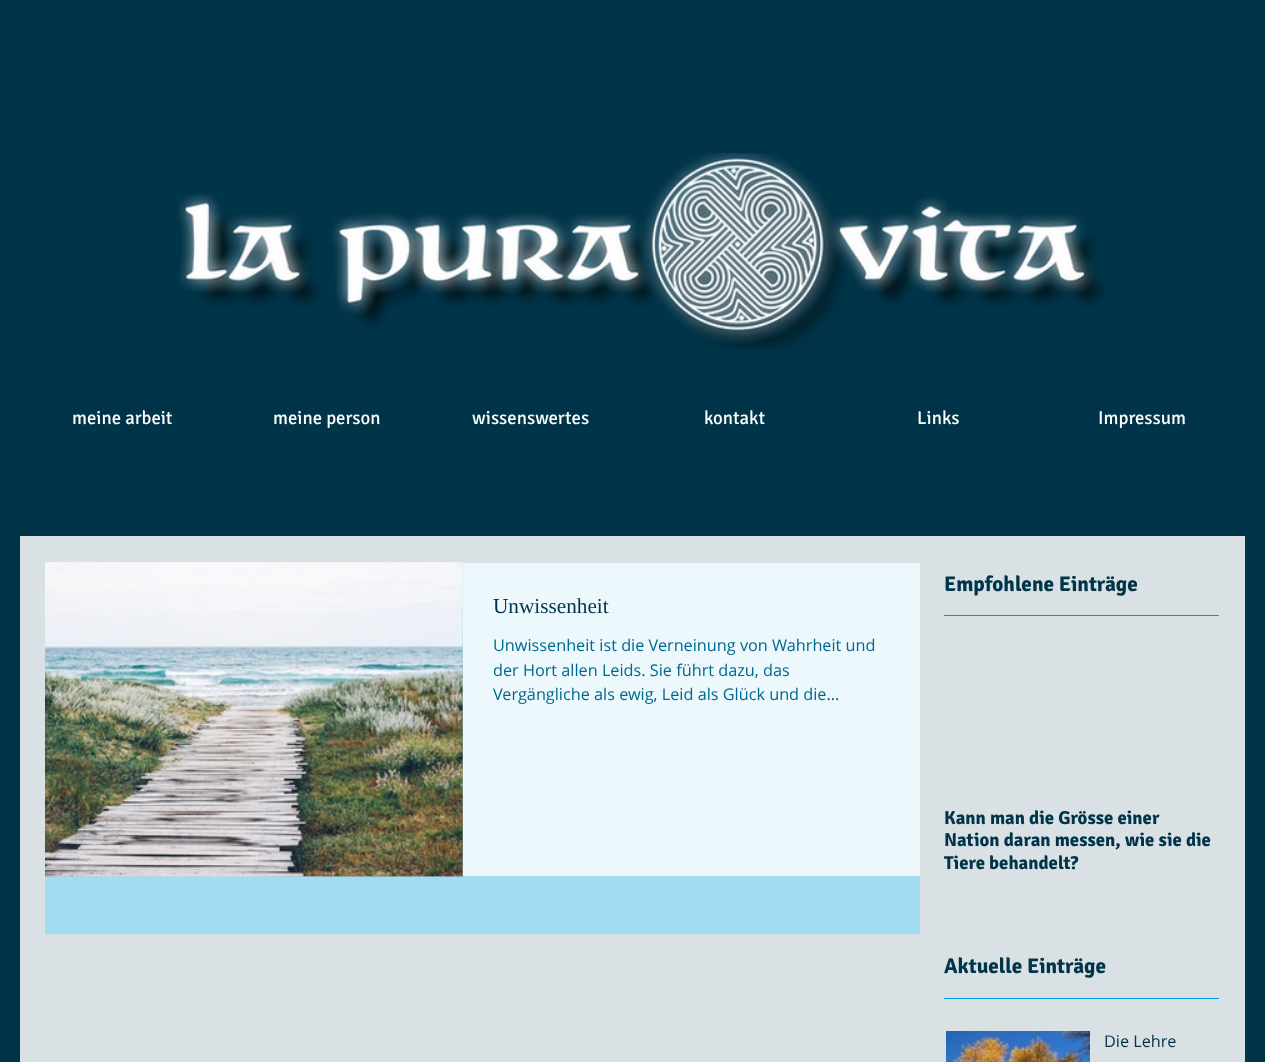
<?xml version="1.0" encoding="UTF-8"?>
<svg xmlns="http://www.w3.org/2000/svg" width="1265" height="1062">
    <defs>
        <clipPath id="clip1"><rect x="944" y="806" width="275" height="68"/></clipPath>
    </defs>
    <rect width="100%" height="100%" fill="#003448"/>
    <image x="177" y="153" width="928" height="197" href="img_01.png"/>
    <text x="72" y="424" font-family="Signika" font-size="18.75" fill="#FFFFFF">meine arbeit</text>
    <text x="273" y="424" font-family="Signika" font-size="18.75" fill="#FFFFFF">meine person</text>
    <text x="472" y="424" font-family="Signika" font-size="18.75" fill="#FFFFFF">wissenswertes</text>
    <text x="704" y="424" font-family="Signika" font-size="18.75" fill="#FFFFFF">kontakt</text>
    <text x="917" y="424" font-family="Signika" font-size="18.75" fill="#FFFFFF">Links</text>
    <text x="1098" y="424" font-family="Signika" font-size="18.75" fill="#FFFFFF">Impressum</text>
    <rect x="20" y="536" width="1225" height="526" fill="#D9E1E4"/>
    <text x="944" y="591" font-family="Signika" font-size="21.25" font-weight="700" fill="#003448">Empfohlene Einträge</text>
    <rect x="45" y="563" width="875" height="371" fill="#A1DCF2"/>
    <image x="45" y="562" width="418" height="315" href="img_02.png"/>
    <image x="45" y="562" width="418" height="315" href="img_03.png"/>
    <rect x="463" y="563" width="457" height="313" fill="#ECF8FC"/>
    <text x="493" y="613" font-family="Liberation Serif" font-size="21.25" fill="#003448">Unwissenheit</text>
    <text font-family="Open Sans" font-size="16.25" fill="#006990">
        <tspan x="493" y="651">Unwissenheit ist die Verneinung von Wahrheit und</tspan>
        <tspan x="493" y="676">der Hort allen Leids. Sie führt dazu, das</tspan>
        <tspan x="493" y="700">Vergängliche als ewig, Leid als Glück und die...</tspan>
    </text>
    <rect x="944" y="615" width="275" height="1" fill="#009ED8"/>
    <text font-family="Signika" font-size="18.75" font-weight="700" fill="#003448">
        <tspan x="944" y="824">Kann man die Grösse einer</tspan>
        <tspan x="944" y="846">Nation daran messen, wie sie die</tspan>
    </text>
    <g clip-path="url(#clip1)">
        <text x="944" y="869" font-family="Signika" font-size="18.75" font-weight="700" fill="#003448">Tiere behandelt?</text>
    </g>
    <text x="944" y="973" font-family="Signika" font-size="21.25" font-weight="700" fill="#003448">Aktuelle Einträge</text>
    <rect x="944" y="998" width="275" height="1" fill="#009ED8"/>
    <image x="946" y="1031" width="144" height="31" href="img_04.png"/>
    <text x="1104" y="1047" font-family="Open Sans" font-size="16.25" fill="#003448">Die Lehre</text>
</svg>
